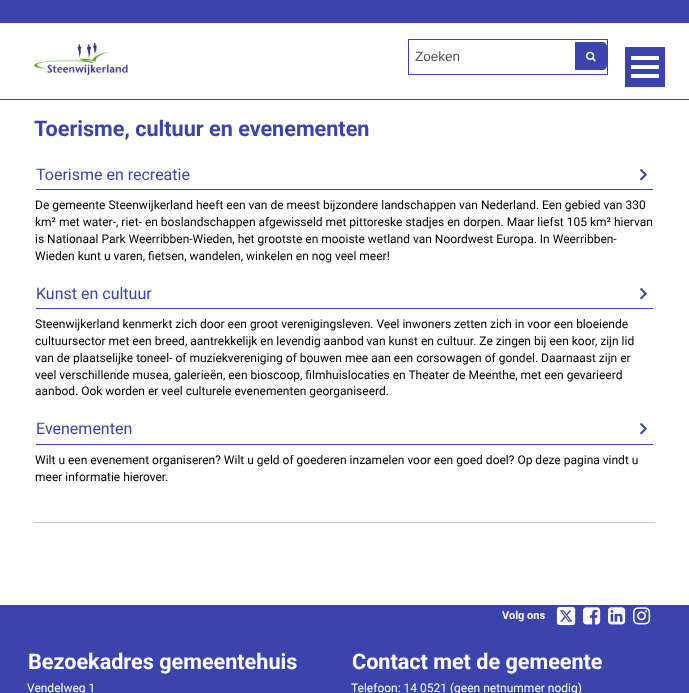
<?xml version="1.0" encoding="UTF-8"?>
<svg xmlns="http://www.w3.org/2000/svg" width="689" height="693">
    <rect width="100%" height="100%" fill="#FFFFFF"/>
    <rect x="0" y="99" width="689" height="1" fill="#3B44AC"/>
    <rect x="0" y="0" width="689" height="23" fill="#3B44AC"/>
    <image x="33" y="43" width="95" height="32" href="img_01.png"/>
    <rect x="408.5" y="39.5" width="199" height="35" fill="none" stroke="#3B44AC"/>
    <text x="415" y="61" font-family="Liberation Sans" font-size="13.5" fill="#555555">Zoeken</text>
    <path d="M 575 42 H 602 C 605 42 607 44 607 47 V 65 C 607 68 605 70 602 70 H 575 Z" fill="#3B44AC"/>
    <image x="586" y="51" width="10" height="11" href="img_02.png"/>
    <rect x="625" y="47" width="40" height="40" fill="#3B44AC"/>
    <rect x="631" y="74" width="28" height="4" fill="#FFFFFF"/>
    <rect x="631" y="65" width="28" height="4" fill="#FFFFFF"/>
    <rect x="631" y="56" width="28" height="4" fill="#FFFFFF"/>
    <text x="34" y="136" font-family="Roboto" font-size="21.6" font-weight="700" fill="#3B44AC">Toerisme, cultuur en evenementen</text>
    <image x="640" y="169" width="7" height="12" href="img_03.png"/>
    <rect x="36" y="189" width="617" height="1" fill="#3B44AC"/>
    <text x="36" y="180" font-family="Roboto" font-size="16" fill="#3B44AC">Toerisme en recreatie</text>
    <text font-family="Roboto" font-size="12" fill="#000000">
        <tspan x="35" y="209">De gemeente Steenwijkerland heeft een van de meest bijzondere landschappen van Nederland. Een gebied van 330</tspan>
        <tspan x="35" y="226">km² met water-, riet- en boslandschappen afgewisseld met pittoreske stadjes en dorpen. Maar liefst 105 km² hiervan</tspan>
        <tspan x="35" y="243">is Nationaal Park Weerribben-Wieden, het grootste en mooiste wetland van Noordwest Europa. In Weerribben-</tspan>
        <tspan x="35" y="260">Wieden kunt u varen, fietsen, wandelen, winkelen en nog veel meer!</tspan>
    </text>
    <image x="640" y="288" width="7" height="12" href="img_03.png"/>
    <rect x="36" y="308" width="617" height="1" fill="#3B44AC"/>
    <text x="36" y="299" font-family="Roboto" font-size="16" fill="#3B44AC">Kunst en cultuur</text>
    <text font-family="Roboto" font-size="12" fill="#000000">
        <tspan x="35" y="328">Steenwijkerland kenmerkt zich door een groot verenigingsleven. Veel inwoners zetten zich in voor een bloeiende</tspan>
        <tspan x="35" y="345">cultuursector met een breed, aantrekkelijk en levendig aanbod van kunst en cultuur. Ze zingen bij een koor, zijn lid</tspan>
        <tspan x="35" y="362">van de plaatselijke toneel- of muziekvereniging of bouwen mee aan een corsowagen of gondel. Daarnaast zijn er</tspan>
        <tspan x="35" y="379">veel verschillende musea, galerieën, een bioscoop, filmhuislocaties en Theater de Meenthe, met een gevarieerd</tspan>
        <tspan x="35" y="395">aanbod. Ook worden er veel culturele evenementen georganiseerd.</tspan>
    </text>
    <image x="640" y="423" width="7" height="12" href="img_03.png"/>
    <rect x="36" y="444" width="617" height="1" fill="#3B44AC"/>
    <text x="36" y="434" font-family="Roboto" font-size="16" fill="#3B44AC">Evenementen</text>
    <text font-family="Roboto" font-size="12" fill="#000000">
        <tspan x="35" y="464">Wilt u een evenement organiseren? Wilt u geld of goederen inzamelen voor een goed doel? Op deze pagina vindt u</tspan>
        <tspan x="35" y="481">meer informatie hierover.</tspan>
    </text>
    <rect x="34" y="522" width="621" height="1" fill="#CCCCCC"/>
    <rect x="0" y="605" width="689" height="88" fill="#3B44AC"/>
    <text x="502" y="619" font-family="Roboto" font-size="11" font-weight="700" fill="#FFFFFF">Volg ons</text>
    <image x="556" y="606" width="20" height="20" href="img_04.png"/>
    <image x="583" y="607" width="18" height="18" href="img_05.png"/>
    <image x="608" y="607" width="18" height="18" href="img_06.png"/>
    <image x="633" y="607" width="18" height="18" href="img_07.png"/>
    <text x="28" y="669" font-family="Roboto" font-size="21.6" font-weight="700" fill="#FFFFFF">Bezoekadres gemeentehuis</text>
    <text x="27" y="692" font-family="Roboto" font-size="12" fill="#FFFFFF">Vendelweg 1</text>
    <text x="352" y="669" font-family="Roboto" font-size="21.6" font-weight="700" fill="#FFFFFF">Contact met de gemeente</text>
    <text x="351" y="692" font-family="Roboto" font-size="12" fill="#FFFFFF">Telefoon: 14 0521 (geen netnummer nodig)</text>
</svg>
